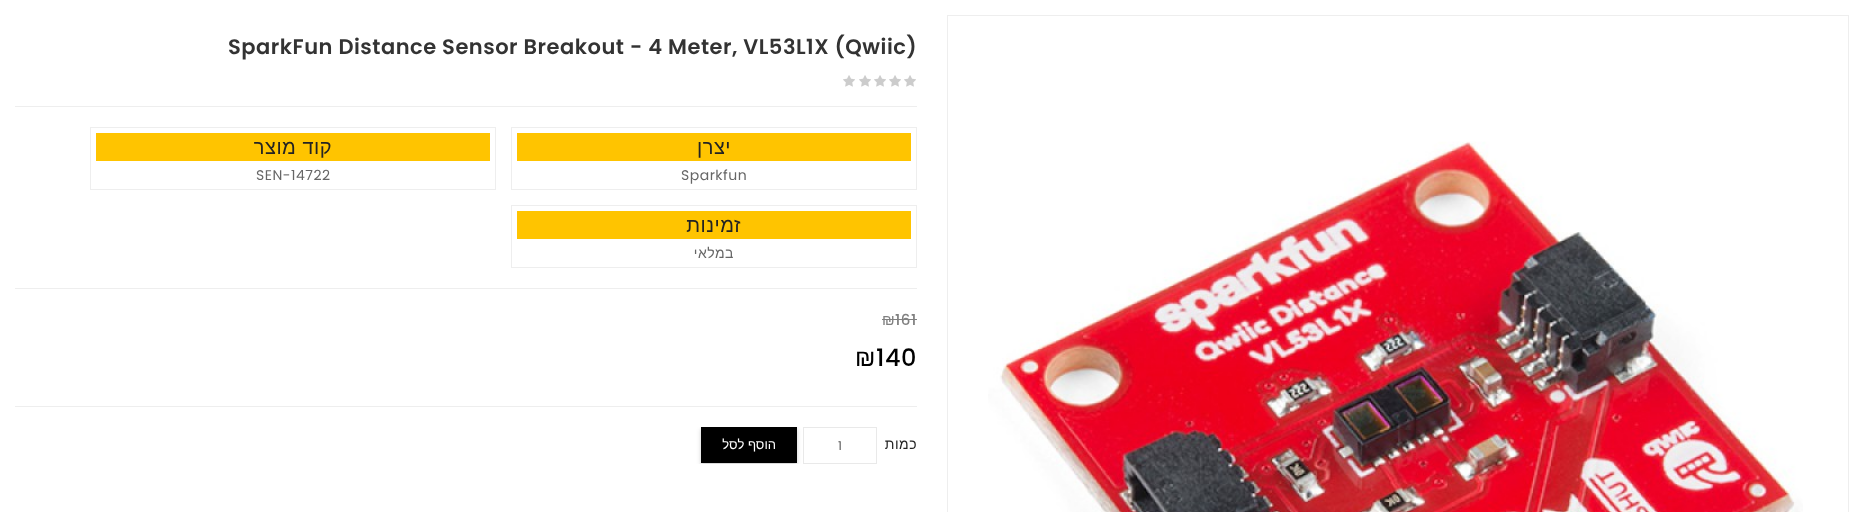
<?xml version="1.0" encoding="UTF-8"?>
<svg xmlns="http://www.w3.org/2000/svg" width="1864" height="512">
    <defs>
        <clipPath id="clip1"><rect x="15" y="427" width="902" height="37"/></clipPath>
        <filter id="blur1" x="-50%" y="-200%" width="200%" height="500%"><feGaussianBlur stdDeviation="2"/></filter>
    </defs>
    <rect width="100%" height="100%" fill="#FFFFFF"/>
    <text x="228" y="54" font-family="Poppins" font-size="21" font-weight="600" letter-spacing="0.5" fill="#333333">SparkFun Distance Sensor Breakout - 4 Meter, VL53L1X (Qwiic)</text>
    <image x="843" y="75" width="12" height="12" href="img_01.png"/>
    <image x="859" y="75" width="12" height="12" href="img_01.png"/>
    <image x="874" y="75" width="12" height="12" href="img_01.png"/>
    <image x="889" y="75" width="12" height="12" href="img_01.png"/>
    <image x="904" y="75" width="12" height="12" href="img_01.png"/>
    <rect x="15" y="106" width="902" height="1" fill="#EEEEEE"/>
    <rect x="15" y="288" width="902" height="1" fill="#EEEEEE"/>
    <rect x="90.5" y="127.5" width="405" height="62" fill="none" stroke="#EEEEEE"/>
    <rect x="96" y="133" width="394" height="28" fill="#FFC400"/>
    <text x="332" y="154" font-family="Liberation Sans" font-size="20" letter-spacing="0.5" direction="rtl" fill="#232323">קוד מוצר</text>
    <text x="256" y="180" font-family="Poppins" font-size="14" letter-spacing="0.5" fill="#666666">SEN-14722</text>
    <rect x="511.5" y="127.5" width="405" height="62" fill="none" stroke="#EEEEEE"/>
    <rect x="517" y="133" width="394" height="28" fill="#FFC400"/>
    <text x="731" y="154" font-family="Liberation Sans" font-size="20" letter-spacing="0.5" direction="rtl" fill="#232323">יצרן</text>
    <text x="681" y="180" font-family="Poppins" font-size="14" letter-spacing="0.5" fill="#666666">Sparkfun</text>
    <rect x="511.5" y="205.5" width="405" height="62" fill="none" stroke="#EEEEEE"/>
    <rect x="517" y="211" width="394" height="28" fill="#FFC400"/>
    <text x="741" y="232" font-family="Liberation Sans" font-size="20" letter-spacing="0.5" direction="rtl" fill="#232323">זמינות</text>
    <text x="734" y="258" font-family="Liberation Sans" font-size="14" letter-spacing="0.5" direction="rtl" fill="#666666">במלאי</text>
    <text x="882" y="325" font-family="Liberation Sans" font-size="15" letter-spacing="0.5" fill="#808080">₪</text>
    <text x="895" y="325" font-family="Poppins" font-size="15" font-weight="500" letter-spacing="0.5" fill="#808080">161</text>
    <rect x="882" y="319" width="35" height="1" fill="#808080"/>
    <text x="855" y="366" font-family="Liberation Sans" font-size="24" letter-spacing="0.5" fill="#000000">₪</text>
    <text x="876" y="366" font-family="Poppins" font-size="24" font-weight="500" letter-spacing="0.5" fill="#000000">140</text>
    <rect x="15" y="406" width="902" height="1" fill="#EEEEEE"/>
    <rect x="803.5" y="427.5" width="73" height="36" fill="none" stroke="#E9E9E9"/>
    <g clip-path="url(#clip1)">
        <rect x="701" y="429" width="96" height="36" fill="#000000" fill-opacity="0.2" filter="url(#blur1)"/>
    </g>
    <rect x="701" y="427" width="96" height="36" fill="#000000"/>
    <text x="776" y="449" font-family="Liberation Sans" font-size="13" direction="rtl" fill="#FFFFFF">הוסף לסל</text>
    <text x="838" y="450" font-family="Poppins" font-size="12" fill="#555555">1</text>
    <text x="917" y="449" font-family="Liberation Sans" font-size="14" letter-spacing="0.5" direction="rtl" fill="#232323">כמות</text>
    <rect x="947.5" y="15.5" width="901" height="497" fill="none" stroke="#EEEEEE"/>
    <image x="988" y="141" width="815" height="371" href="img_02.png"/>
</svg>
